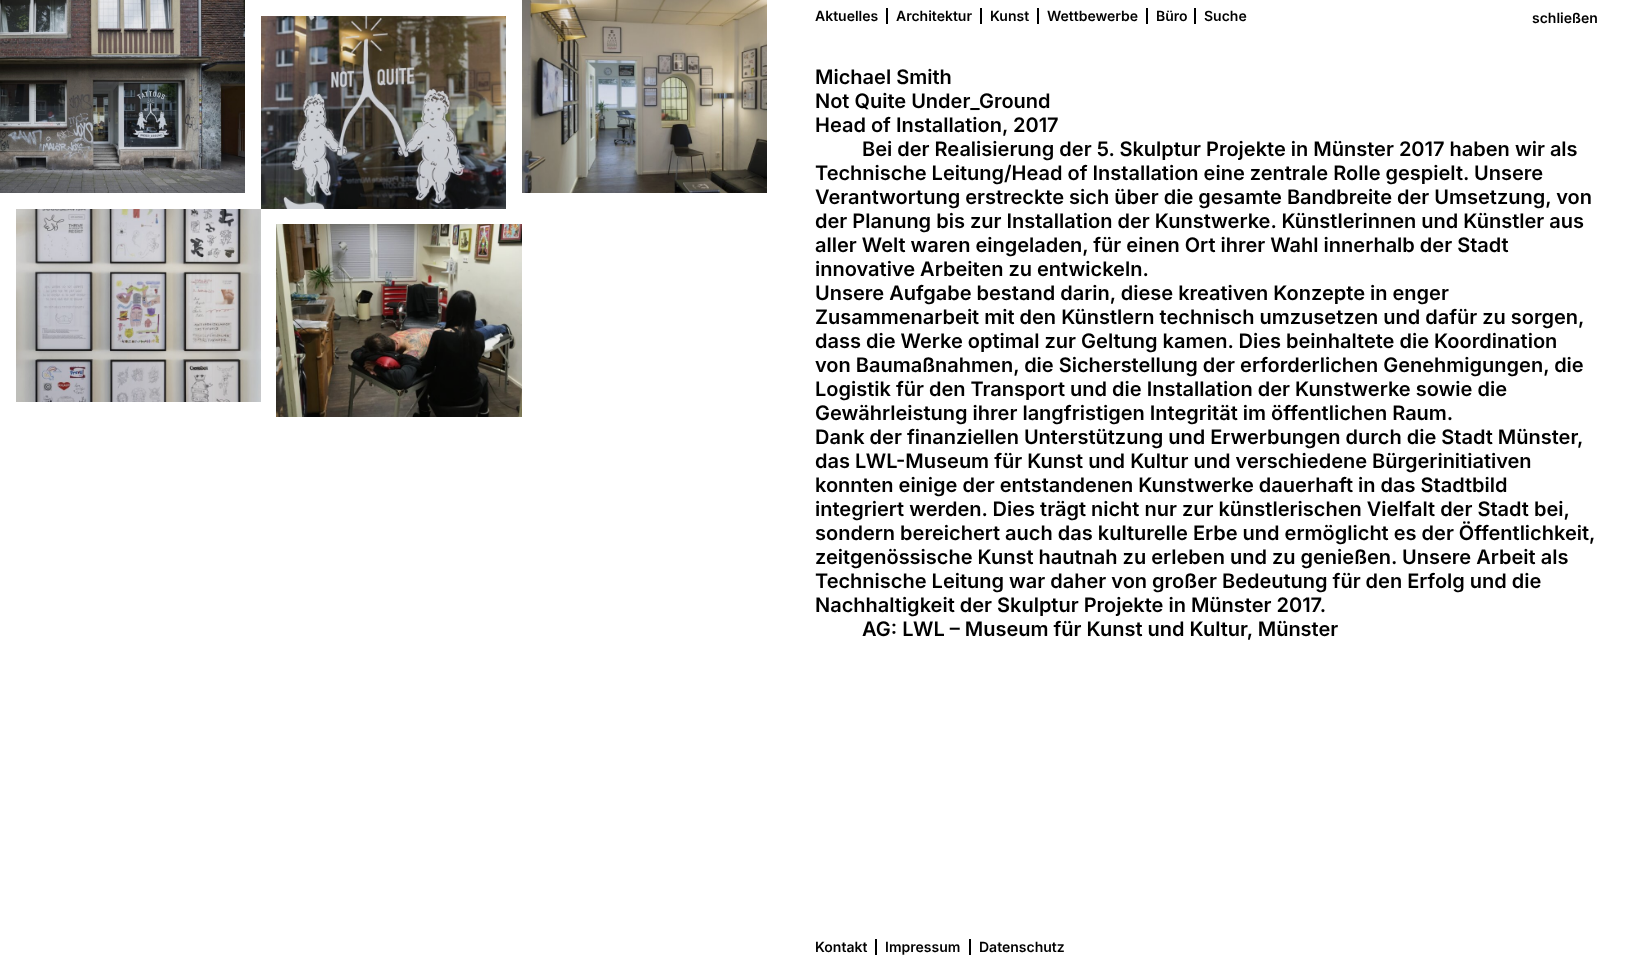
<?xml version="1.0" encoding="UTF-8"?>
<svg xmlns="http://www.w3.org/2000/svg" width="1630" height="963">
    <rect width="100%" height="100%" fill="#FFFFFF"/>
    <text x="815" y="21" font-family="Inter" font-size="14" font-weight="600" fill="#000000">Aktuelles</text>
    <rect x="886" y="8" width="2" height="16" fill="#000000"/>
    <text x="896" y="21" font-family="Inter" font-size="14" font-weight="600" fill="#000000">Architektur</text>
    <rect x="980" y="8" width="2" height="16" fill="#000000"/>
    <text x="990" y="21" font-family="Inter" font-size="14" font-weight="600" fill="#000000">Kunst</text>
    <rect x="1037" y="8" width="2" height="16" fill="#000000"/>
    <text x="1047" y="21" font-family="Inter" font-size="14" font-weight="600" fill="#000000">Wettbewerbe</text>
    <rect x="1146" y="8" width="2" height="16" fill="#000000"/>
    <text x="1156" y="21" font-family="Inter" font-size="14" font-weight="600" fill="#000000">Büro</text>
    <rect x="1194" y="8" width="2" height="16" fill="#000000"/>
    <text x="1204" y="21" font-family="Inter" font-size="14" font-weight="600" fill="#000000">Suche</text>
    <text x="1532" y="23" font-family="Inter" font-size="14" font-weight="600" fill="#000000">schließen</text>
    <image x="0" y="0" width="245" height="193" href="img_01.png"/>
    <image x="261" y="16" width="245" height="193" href="img_02.png"/>
    <image x="522" y="0" width="245" height="193" href="img_03.png"/>
    <image x="16" y="209" width="245" height="193" href="img_04.png"/>
    <image x="276" y="224" width="246" height="193" href="img_05.png"/>
    <text font-family="Inter" font-size="20" font-weight="600" fill="#000000">
        <tspan x="815" y="84">Michael Smith</tspan>
        <tspan x="815" y="108">Not Quite Under_Ground</tspan>
        <tspan x="815" y="132">Head of Installation, 2017</tspan>
    </text>
    <text x="862" y="156" font-family="Inter" font-size="20" font-weight="600" fill="#000000">Bei der Realisierung der 5. Skulptur Projekte in Münster 2017 haben wir als</text>
    <text font-family="Inter" font-size="20" font-weight="600" fill="#000000">
        <tspan x="815" y="180">Technische Leitung/Head of Installation eine zentrale Rolle gespielt. Unsere</tspan>
        <tspan x="815" y="204">Verantwortung erstreckte sich über die gesamte Bandbreite der Umsetzung, von</tspan>
        <tspan x="815" y="228">der Planung bis zur Installation der Kunstwerke. Künstlerinnen und Künstler aus</tspan>
        <tspan x="815" y="252">aller Welt waren eingeladen, für einen Ort ihrer Wahl innerhalb der Stadt</tspan>
        <tspan x="815" y="276">innovative Arbeiten zu entwickeln.</tspan>
        <tspan x="815" y="300">Unsere Aufgabe bestand darin, diese kreativen Konzepte in enger</tspan>
        <tspan x="815" y="324">Zusammenarbeit mit den Künstlern technisch umzusetzen und dafür zu sorgen,</tspan>
        <tspan x="815" y="348">dass die Werke optimal zur Geltung kamen. Dies beinhaltete die Koordination</tspan>
        <tspan x="815" y="372">von Baumaßnahmen, die Sicherstellung der erforderlichen Genehmigungen, die</tspan>
        <tspan x="815" y="396">Logistik für den Transport und die Installation der Kunstwerke sowie die</tspan>
        <tspan x="815" y="420">Gewährleistung ihrer langfristigen Integrität im öffentlichen Raum.</tspan>
        <tspan x="815" y="444">Dank der finanziellen Unterstützung und Erwerbungen durch die Stadt Münster,</tspan>
        <tspan x="815" y="468">das LWL-Museum für Kunst und Kultur und verschiedene Bürgerinitiativen</tspan>
        <tspan x="815" y="492">konnten einige der entstandenen Kunstwerke dauerhaft in das Stadtbild</tspan>
        <tspan x="815" y="516">integriert werden. Dies trägt nicht nur zur künstlerischen Vielfalt der Stadt bei,</tspan>
        <tspan x="815" y="540">sondern bereichert auch das kulturelle Erbe und ermöglicht es der Öffentlichkeit,</tspan>
        <tspan x="815" y="564">zeitgenössische Kunst hautnah zu erleben und zu genießen. Unsere Arbeit als</tspan>
        <tspan x="815" y="588">Technische Leitung war daher von großer Bedeutung für den Erfolg und die</tspan>
        <tspan x="815" y="612">Nachhaltigkeit der Skulptur Projekte in Münster 2017.</tspan>
    </text>
    <text x="862" y="636" font-family="Inter" font-size="20" font-weight="600" fill="#000000">AG: LWL – Museum für Kunst und Kultur, Münster</text>
    <text x="815" y="952" font-family="Inter" font-size="14" font-weight="600" fill="#000000">Kontakt</text>
    <rect x="875" y="939" width="2" height="16" fill="#000000"/>
    <text x="885" y="952" font-family="Inter" font-size="14" font-weight="600" fill="#000000">Impressum</text>
    <rect x="969" y="939" width="2" height="16" fill="#000000"/>
    <text x="979" y="952" font-family="Inter" font-size="14" font-weight="600" fill="#000000">Datenschutz</text>
</svg>
